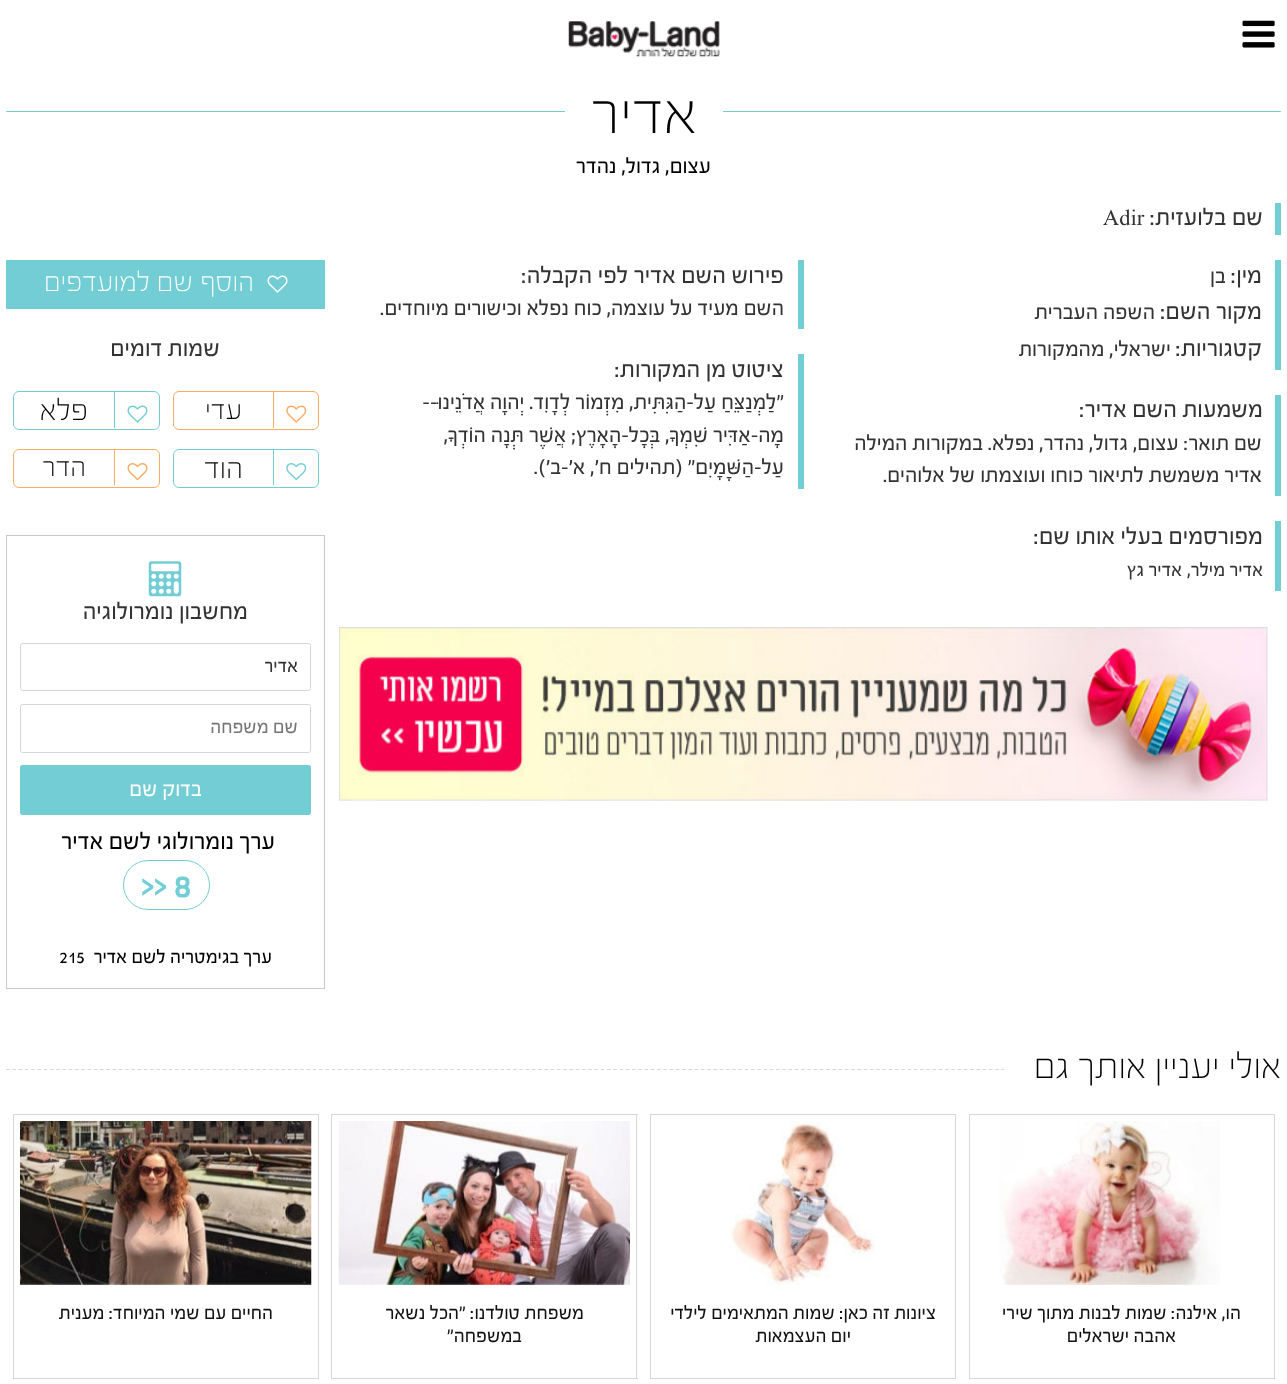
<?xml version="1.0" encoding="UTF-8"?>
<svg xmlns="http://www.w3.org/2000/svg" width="1287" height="1384">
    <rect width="100%" height="100%" fill="#FFFFFF"/>
    <image x="1242" y="20" width="33" height="28" href="img_01.png"/>
    <image x="568" y="21" width="152" height="36" href="img_02.png"/>
    <rect x="6" y="111" width="1275" height="1" rx="0.5" fill="#73CDD5"/>
    <rect x="565" y="111" width="158" height="1" fill="#FFFFFF"/>
    <text x="697" y="133" font-family="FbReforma" font-size="62" direction="rtl" fill="#000000">אדיר</text>
    <text x="711" y="173" font-family="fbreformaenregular" font-size="22.5" direction="rtl" fill="#000000">עצום, גדול, נהדר</text>
    <rect x="1275" y="203" width="6" height="32" fill="#73CDD5"/>
    <text x="1263" y="225" font-family="fbreformaenregular" font-size="25" direction="rtl" fill="#333333">שם בלועזית:</text>
    <text x="1103" y="225" font-family="fbreformaenregular" font-size="22.5" fill="#333333">Adir</text>
    <rect x="1275" y="260" width="6" height="110" fill="#73CDD5"/>
    <text x="1262" y="283" font-family="fbreformaenregular" font-size="25" direction="rtl" fill="#333333">מין:</text>
    <text x="1226" y="283" font-family="fbreformaenregular" font-size="22.5" direction="rtl" fill="#333333">בן</text>
    <text x="1262" y="319" font-family="fbreformaenregular" font-size="25" direction="rtl" fill="#333333">מקור השם:</text>
    <text x="1155" y="319" font-family="fbreformaenregular" font-size="22.5" direction="rtl" fill="#333333">השפה העברית</text>
    <text x="1262" y="356" font-family="fbreformaenregular" font-size="25" direction="rtl" fill="#333333">קטגוריות:</text>
    <text x="1171" y="356" font-family="fbreformaenregular" font-size="22.5" direction="rtl" fill="#333333">ישראלי, מהמקורות</text>
    <rect x="1275" y="395" width="6" height="101" fill="#73CDD5"/>
    <text x="1263" y="417" font-family="fbreformaenregular" font-size="25" direction="rtl" fill="#333333">משמעות השם אדיר:</text>
    <text font-family="fbreformaenregular" font-size="22.5" direction="rtl" fill="#333333">
        <tspan x="1262" y="450">שם תואר: עצום, גדול, נהדר, נפלא. במקורות המילה</tspan>
        <tspan x="1262" y="482">אדיר משמשת לתיאור כוחו ועוצמתו של אלוהים.</tspan>
    </text>
    <rect x="1275" y="521" width="6" height="70" fill="#73CDD5"/>
    <text x="1263" y="544" font-family="fbreformaenregular" font-size="25" direction="rtl" fill="#333333">מפורסמים בעלי אותו שם:</text>
    <text x="1263" y="576" font-family="fbreformaenregular" font-size="20" direction="rtl" fill="#333333">אדיר מילר,</text>
    <text x="1182" y="576" font-family="fbreformaenregular" font-size="20" direction="rtl" fill="#333333">אדיר גץ</text>
    <rect x="798" y="260" width="6" height="69" fill="#73CDD5"/>
    <text x="784" y="283" font-family="fbreformaenregular" font-size="25" direction="rtl" fill="#333333">פירוש השם אדיר לפי הקבלה:</text>
    <text x="784" y="315" font-family="fbreformaenregular" font-size="22.5" direction="rtl" fill="#333333">השם מעיד על עוצמה, כוח נפלא וכישורים מיוחדים.</text>
    <rect x="798" y="354" width="6" height="135" fill="#73CDD5"/>
    <text x="784" y="377" font-family="fbreformaenregular" font-size="25" direction="rtl" fill="#333333">ציטוט מן המקורות:</text>
    <text font-family="fbreformaenregular" font-size="22.5" direction="rtl" fill="#333333">
        <tspan x="784" y="409">"לַמְנַצֵּחַ עַל-הַגִּתִּית, מִזְמוֹר לְדָוִד. יְהוָה אֲדֹנֵינוּ--</tspan>
        <tspan x="784" y="442">מָה-אַדִּיר שִׁמְךָ, בְּכָל-הָאָרֶץ; אֲשֶׁר תְּנָה הוֹדְךָ,</tspan>
        <tspan x="784" y="474">עַל-הַשָּׁמָיִם" (תהילים ח', א'-ב').</tspan>
    </text>
    <image x="339" y="627" width="929" height="174" href="img_03.png"/>
    <rect x="6" y="260" width="319" height="49" fill="#73CDD5"/>
    <image x="267" y="275" width="21" height="18" href="img_04.png"/>
    <text x="254" y="291" font-family="FbReforma" font-size="28.75" direction="rtl" fill="#FFFFFF">הוסף שם למועדפים</text>
    <text x="220" y="356" font-family="fbreformaenregular" font-size="25" direction="rtl" fill="#333333">שמות דומים</text>
    <rect x="173.5" y="391.5" width="145" height="38" rx="5.5" fill="none" stroke="#F7AD63"/>
    <rect x="174" y="393" width="144" height="36" rx="6" fill="#FFFFFF"/>
    <rect x="273" y="391" width="1" height="37" fill="#F7AD63"/>
    <image x="286" y="405" width="21" height="18" href="img_05.png"/>
    <text x="242" y="419" font-family="FbReforma" font-size="28.75" direction="rtl" fill="#000000">עדי</text>
    <rect x="13.5" y="391.5" width="146" height="38" rx="5.5" fill="none" stroke="#73CDD5"/>
    <rect x="14" y="393" width="145" height="36" rx="6" fill="#FFFFFF"/>
    <rect x="114" y="391" width="1" height="37" fill="#73CDD5"/>
    <image x="127" y="405" width="21" height="18" href="img_06.png"/>
    <text x="88" y="420" font-family="FbReforma" font-size="31" direction="rtl" fill="#000000">פלא</text>
    <rect x="173.5" y="449.5" width="145" height="38" rx="5.5" fill="none" stroke="#73CDD5"/>
    <rect x="174" y="450" width="144" height="36" rx="6" fill="#FFFFFF"/>
    <rect x="273" y="449" width="1" height="36" fill="#73CDD5"/>
    <image x="286" y="463" width="21" height="18" href="img_07.png"/>
    <text x="243" y="478" font-family="FbReforma" font-size="31" direction="rtl" fill="#000000">הוד</text>
    <rect x="13.5" y="449.5" width="146" height="38" rx="5.5" fill="none" stroke="#F7AD63"/>
    <rect x="14" y="450" width="145" height="36" rx="6" fill="#FFFFFF"/>
    <rect x="114" y="449" width="1" height="36" fill="#F7AD63"/>
    <image x="127" y="463" width="21" height="18" href="img_08.png"/>
    <text x="86" y="476" font-family="FbReforma" font-size="28.75" direction="rtl" fill="#000000">הדר</text>
    <rect x="6.5" y="535.5" width="318" height="453" fill="none" stroke="#C9C9C9"/>
    <image x="148" y="561" width="34" height="36" href="img_09.png"/>
    <text x="248" y="619" font-family="fbreformaenregular" font-size="25" direction="rtl" fill="#333333">מחשבון נומרולוגיה</text>
    <rect x="20.5" y="643.5" width="290" height="47" rx="2" fill="none" stroke="#D6D6D6"/>
    <text x="298" y="672" font-family="fbreformaenregular" font-size="20" direction="rtl" fill="#333333">אדיר</text>
    <rect x="20.5" y="704.5" width="290" height="48" rx="2" fill="none" stroke="#D6D6D6"/>
    <text x="298" y="733" font-family="fbreformaenregular" font-size="20" direction="rtl" fill="#757575">שם משפחה</text>
    <rect x="20" y="765" width="291" height="50" rx="2.5" fill="#73CDD5"/>
    <text x="202" y="796" font-family="fbreformaenregular" font-size="22.5" direction="rtl" fill="#FFFFFF">בדוק שם</text>
    <text x="275" y="849" font-family="fbreformaenregular" font-size="25" direction="rtl" fill="#000000">ערך נומרולוגי לשם אדיר</text>
    <rect x="123.5" y="860.5" width="86" height="49" rx="24.5" fill="none" stroke="#73CDD5"/>
    <text x="174" y="897" font-family="fbreformaenregular" font-size="37.5" font-weight="700" fill="#73CDD5">8</text>
    <text x="141" y="897" font-family="fbreformaenregular" font-size="37.5" font-weight="700" fill="#73CDD5">&gt;&gt;</text>
    <text x="272" y="963" font-family="fbreformaenregular" font-size="20" direction="rtl" fill="#000000">ערך בגימטריה לשם אדיר</text>
    <text x="59" y="963" font-family="fbreformaenregular" font-size="20" fill="#000000">215</text>
    <path d="M 6 1069.5 H 1281" fill="none" stroke="#D7D7D7" stroke-width="1.2" stroke-dasharray="3.75 2.51"/>
    <rect x="1004" y="1068" width="277" height="3" fill="#FFFFFF"/>
    <text x="1281" y="1078" font-family="FbReforma" font-size="37.5" direction="rtl" fill="#000000">אולי יעניין אותך גם</text>
    <rect x="969" y="1114" width="306" height="1" fill="#D7D7D7"/>
    <rect x="1274" y="1114" width="1" height="177" fill="#D7D7D7"/>
    <rect x="969" y="1114" width="1" height="177" fill="#D7D7D7"/>
    <image x="999" y="1121" width="221" height="164" href="img_10.png"/>
    <rect x="1274" y="1291" width="1" height="88" fill="#D7D7D7"/>
    <rect x="969" y="1378" width="306" height="1" fill="#D7D7D7"/>
    <rect x="969" y="1291" width="1" height="88" fill="#D7D7D7"/>
    <text x="1241" y="1319" font-family="fbreformaenregular" font-size="20" direction="rtl" fill="#111111">הו, אילנה: שמות לבנות מתוך שירי</text>
    <text x="1176" y="1342" font-family="fbreformaenregular" font-size="20" direction="rtl" fill="#111111">אהבה ישראלים</text>
    <rect x="650" y="1114" width="306" height="1" fill="#D7D7D7"/>
    <rect x="955" y="1114" width="1" height="177" fill="#D7D7D7"/>
    <rect x="650" y="1114" width="1" height="177" fill="#D7D7D7"/>
    <image x="730" y="1121" width="145" height="164" href="img_11.png"/>
    <rect x="955" y="1291" width="1" height="88" fill="#D7D7D7"/>
    <rect x="650" y="1378" width="306" height="1" fill="#D7D7D7"/>
    <rect x="650" y="1291" width="1" height="88" fill="#D7D7D7"/>
    <text x="936" y="1319" font-family="fbreformaenregular" font-size="20" direction="rtl" fill="#111111">ציונות זה כאן: שמות המתאימים לילדי</text>
    <text x="851" y="1342" font-family="fbreformaenregular" font-size="20" direction="rtl" fill="#111111">יום העצמאות</text>
    <rect x="331" y="1114" width="307" height="1" fill="#D7D7D7"/>
    <rect x="636" y="1114" width="1" height="177" fill="#D7D7D7"/>
    <rect x="331" y="1114" width="1" height="177" fill="#D7D7D7"/>
    <image x="338" y="1121" width="292" height="164" href="img_12.png"/>
    <rect x="636" y="1291" width="1" height="88" fill="#D7D7D7"/>
    <rect x="331" y="1378" width="307" height="1" fill="#D7D7D7"/>
    <rect x="331" y="1291" width="1" height="88" fill="#D7D7D7"/>
    <text x="584" y="1319" font-family="fbreformaenregular" font-size="20" direction="rtl" fill="#111111">משפחת טולדנו: "הכל נשאר</text>
    <text x="522" y="1342" font-family="fbreformaenregular" font-size="20" direction="rtl" fill="#111111">במשפחה"</text>
    <rect x="13" y="1114" width="306" height="1" fill="#D7D7D7"/>
    <rect x="318" y="1114" width="1" height="177" fill="#D7D7D7"/>
    <rect x="13" y="1114" width="1" height="177" fill="#D7D7D7"/>
    <image x="20" y="1121" width="292" height="164" href="img_13.png"/>
    <rect x="318" y="1291" width="1" height="88" fill="#D7D7D7"/>
    <rect x="13" y="1378" width="306" height="1" fill="#D7D7D7"/>
    <rect x="13" y="1291" width="1" height="88" fill="#D7D7D7"/>
    <text x="273" y="1319" font-family="fbreformaenregular" font-size="20" direction="rtl" fill="#111111">החיים עם שמי המיוחד: מענית</text>
</svg>
